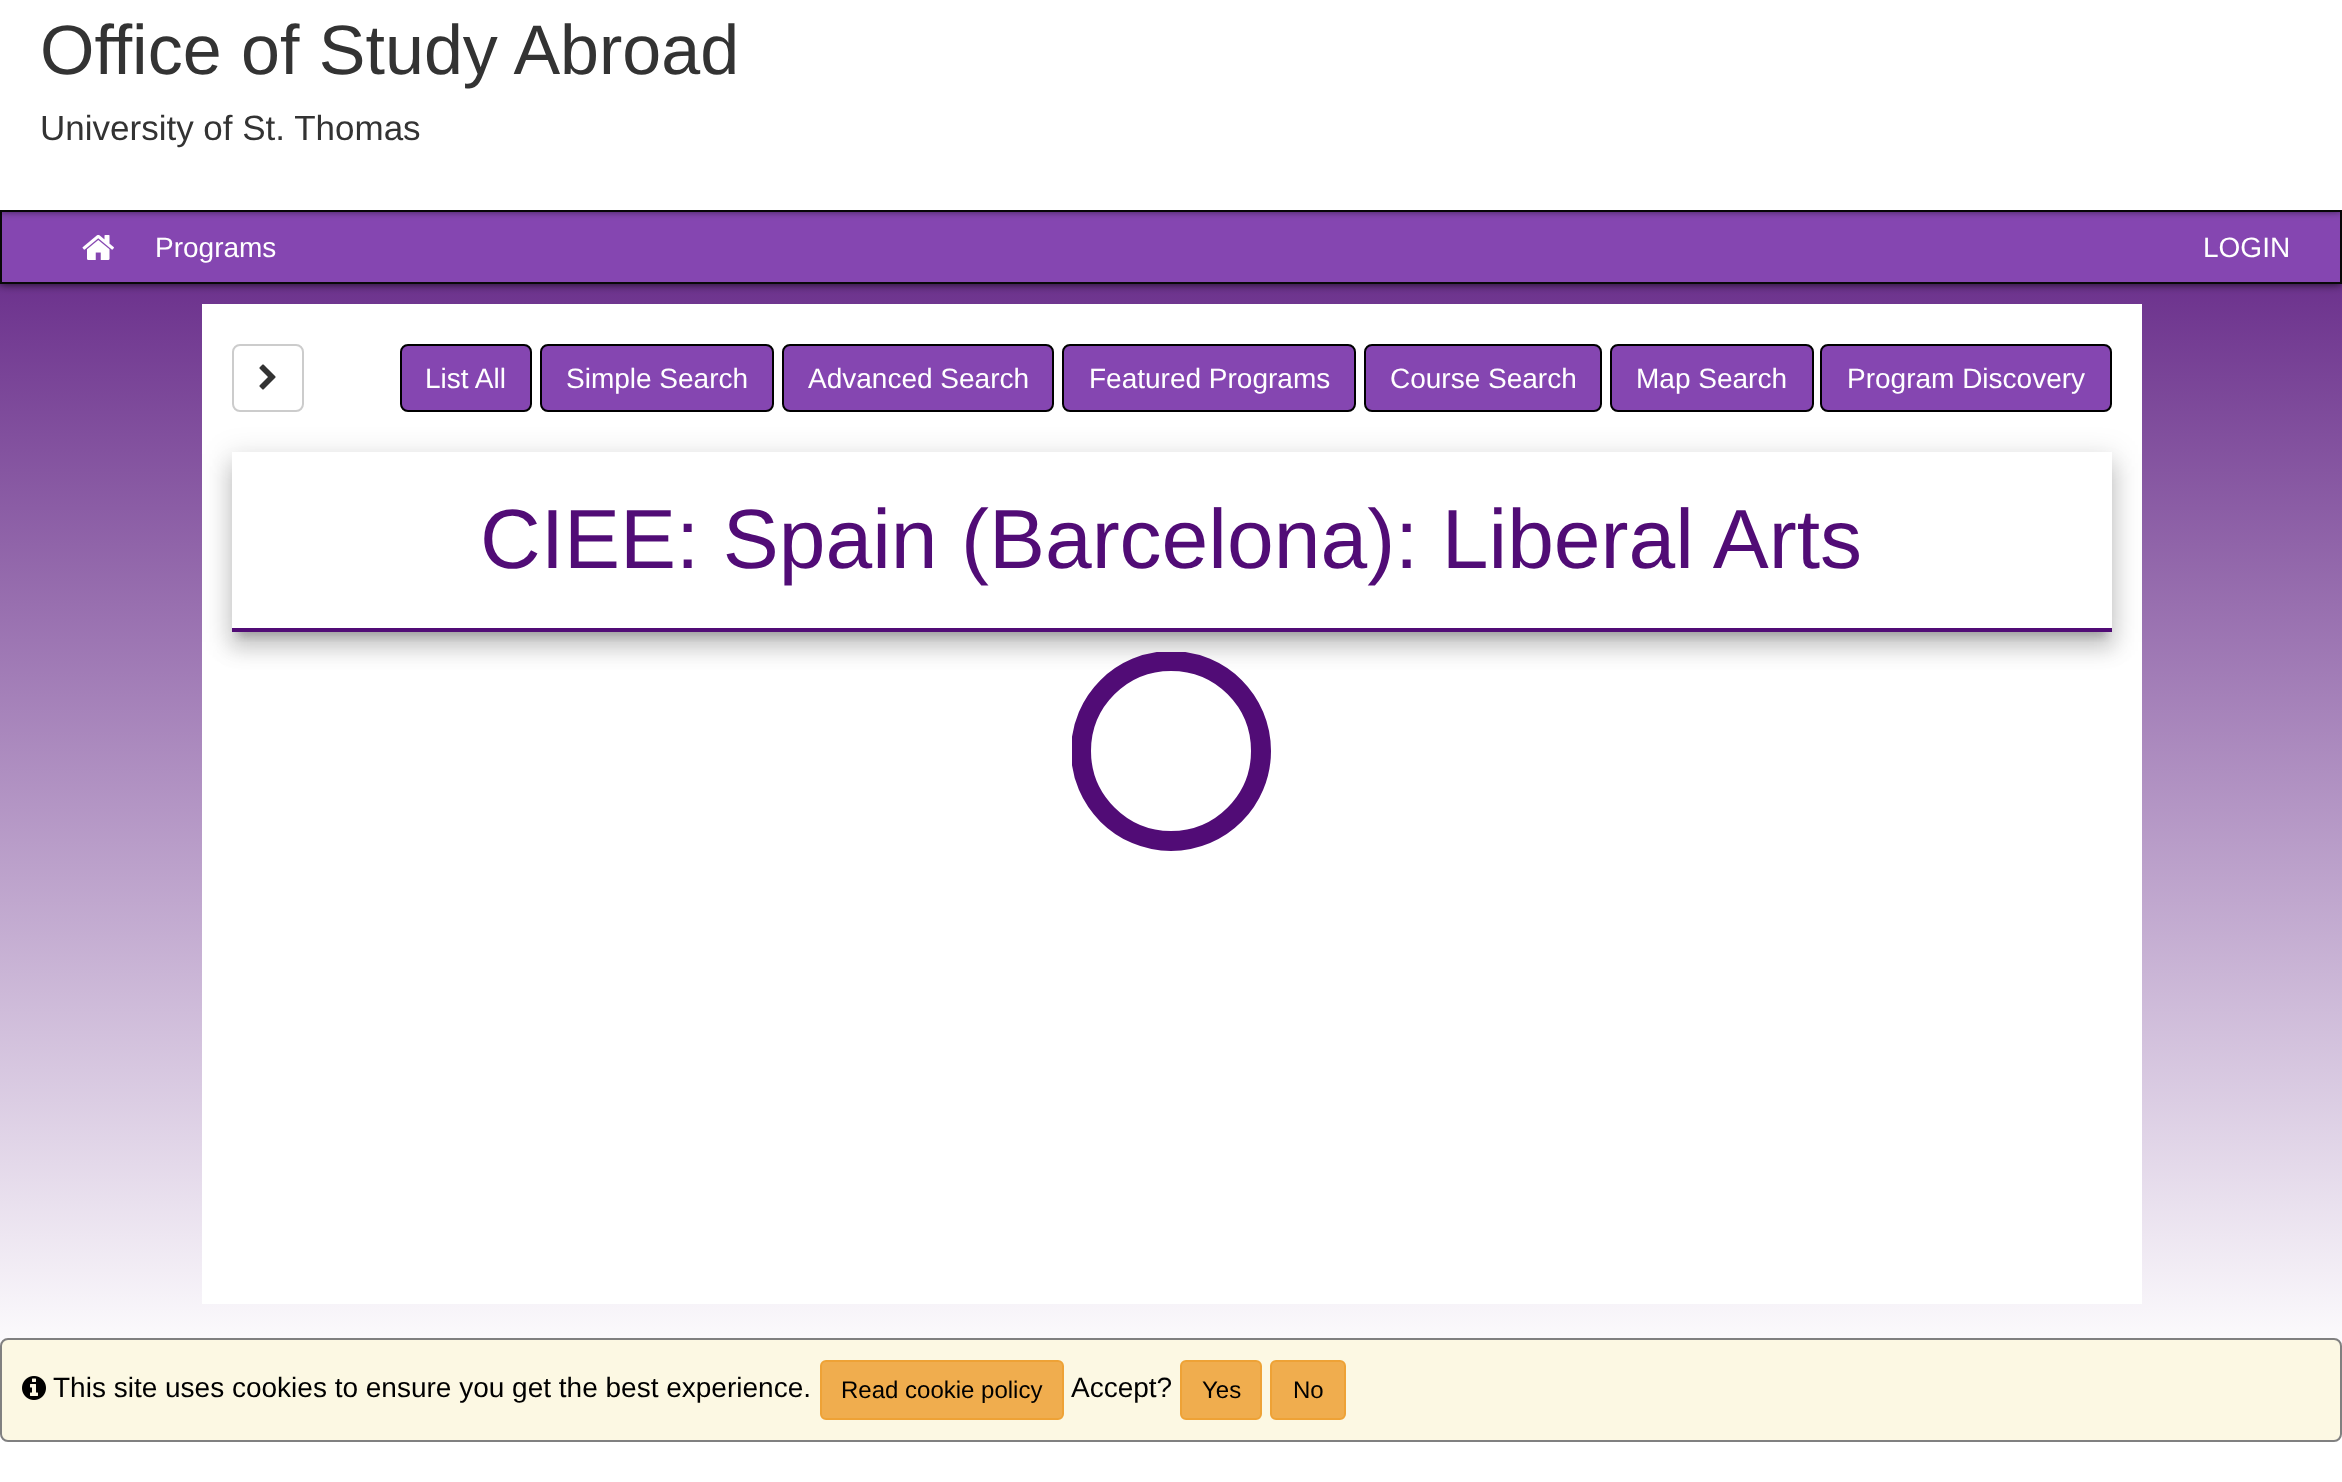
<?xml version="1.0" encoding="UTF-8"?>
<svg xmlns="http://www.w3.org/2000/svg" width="2342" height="1482">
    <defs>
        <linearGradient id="g1" gradientUnits="userSpaceOnUse" x1="1171" y1="-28" x2="1171" y2="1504"><stop offset="0.07" stop-color="#510C78"/><stop offset="0.91" stop-color="#FFFFFF"/></linearGradient>
        <filter id="blur1" x="-50%" y="-200%" width="200%" height="500%"><feGaussianBlur stdDeviation="5"/></filter>
        <clipPath id="clip1"><path d="M 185 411 H 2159 V 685 H 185 Z M 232 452 H 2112 V 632 H 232 Z" clip-rule="evenodd"/></clipPath>
        <filter id="blur2" x="-50%" y="-200%" width="200%" height="500%"><feGaussianBlur stdDeviation="14"/></filter>
        <clipPath id="clip2"><path d="M 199 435 H 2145 V 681 H 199 Z M 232 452 H 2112 V 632 H 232 Z" clip-rule="evenodd"/></clipPath>
        <filter id="blur3" x="-50%" y="-200%" width="200%" height="500%"><feGaussianBlur stdDeviation="10"/></filter>
        <clipPath id="clip3"><rect x="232" y="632" width="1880" height="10"/></clipPath>
        <clipPath id="clip4"><rect x="1072" y="652" width="200" height="200"/></clipPath>
    </defs>
    <rect width="100%" height="100%" fill="#FFFFFF"/>
    <rect x="0" y="284" width="2342" height="1069" fill="url(#g1)"/>
    <rect x="0" y="210" width="2342" height="74" fill="#000000" fill-opacity="0.8" filter="url(#blur1)"/>
    <rect x="1" y="211" width="2340" height="72" fill="none" stroke="#080808" stroke-width="2"/>
    <rect x="2" y="212" width="2338" height="70" fill="#8546B1"/>
    <rect x="0" y="-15" width="2342" height="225" fill="#000000" fill-opacity="0.8" filter="url(#blur1)"/>
    <rect x="0" y="0" width="2342" height="210" fill="#FFFFFF"/>
    <text x="40" y="74" font-family="Liberation Sans" font-size="70" fill="#333333">Office of Study Abroad</text>
    <text x="40" y="140" font-family="Liberation Sans" font-size="35" fill="#333333">University of St. Thomas</text>
    <image x="82" y="234" width="32" height="26" href="img_01.png"/>
    <text x="155" y="257" font-family="Liberation Sans" font-size="28" fill="#FFFFFF">Programs</text>
    <text x="2203" y="257" font-family="Liberation Sans" font-size="28" fill="#FFFFFF">LOGIN</text>
    <rect x="202" y="304" width="1940" height="1000" fill="#FFFFFF"/>
    <g clip-path="url(#clip1)">
        <rect x="228" y="454" width="1888" height="188" fill="#000000" fill-opacity="0.12" filter="url(#blur2)"/>
    </g>
    <rect x="233" y="345" width="70" height="66" rx="7" fill="none" stroke="#CCCCCC" stroke-width="2"/>
    <image x="259" y="364" width="17" height="26" href="img_02.png"/>
    <rect x="401" y="345" width="130" height="66" rx="7" fill="#8546B1" stroke="#000000" stroke-width="2"/>
    <text x="425" y="388" font-family="Liberation Sans" font-size="28" fill="#FFFFFF">List All</text>
    <rect x="541" y="345" width="232" height="66" rx="7" fill="#8546B1" stroke="#000000" stroke-width="2"/>
    <text x="566" y="388" font-family="Liberation Sans" font-size="28" fill="#FFFFFF">Simple Search</text>
    <rect x="783" y="345" width="270" height="66" rx="7" fill="#8546B1" stroke="#000000" stroke-width="2"/>
    <text x="808" y="388" font-family="Liberation Sans" font-size="28" fill="#FFFFFF">Advanced Search</text>
    <rect x="1063" y="345" width="292" height="66" rx="7" fill="#8546B1" stroke="#000000" stroke-width="2"/>
    <text x="1089" y="388" font-family="Liberation Sans" font-size="28" fill="#FFFFFF">Featured Programs</text>
    <rect x="1365" y="345" width="236" height="66" rx="7" fill="#8546B1" stroke="#000000" stroke-width="2"/>
    <text x="1390" y="388" font-family="Liberation Sans" font-size="28" fill="#FFFFFF">Course Search</text>
    <rect x="1611" y="345" width="202" height="66" rx="7" fill="#8546B1" stroke="#000000" stroke-width="2"/>
    <text x="1636" y="388" font-family="Liberation Sans" font-size="28" fill="#FFFFFF">Map Search</text>
    <rect x="1821" y="345" width="290" height="66" rx="7" fill="#8546B1" stroke="#000000" stroke-width="2"/>
    <text x="1847" y="388" font-family="Liberation Sans" font-size="28" fill="#FFFFFF">Program Discovery</text>
    <g clip-path="url(#clip2)">
        <rect x="230" y="466" width="1884" height="184" fill="#000000" fill-opacity="0.14" filter="url(#blur3)"/>
    </g>
    <g clip-path="url(#clip3)">
        <rect x="238" y="468" width="1868" height="168" fill="#000000" fill-opacity="0.2" filter="url(#blur1)"/>
    </g>
    <rect x="232" y="628" width="1880" height="4" fill="#510C76"/>
    <text x="480" y="568" font-family="Liberation Sans" font-size="84" fill="#510C76">CIEE: Spain (Barcelona): Liberal Arts</text>
    <g clip-path="url(#clip4)">
        <path d="M 1081 751 C 1081 701 1121.5 661 1171 661 C 1221 661 1261 701 1261 751 C 1261 800.5 1221 841 1171 841 C 1121.5 841 1081 800.5 1081 751" fill="none" stroke="#510C76" stroke-width="20"/>
    </g>
    <rect x="1" y="1339" width="2340" height="102" rx="7" fill="#FCF8E3" stroke="#808080" stroke-width="2"/>
    <image x="22" y="1376" width="24" height="24" href="img_03.png"/>
    <text x="53" y="1397" font-family="Liberation Sans" font-size="28" fill="#000000">This site uses cookies to ensure you get the best experience.</text>
    <rect x="821" y="1361" width="242" height="58" rx="5" fill="#F0AD4E" stroke="#EEA236" stroke-width="2"/>
    <text x="841" y="1398" font-family="Liberation Sans" font-size="24" fill="#000000">Read cookie policy</text>
    <text x="1071" y="1397" font-family="Liberation Sans" font-size="28" fill="#000000">Accept?</text>
    <rect x="1181" y="1361" width="80" height="58" rx="5" fill="#F0AD4E" stroke="#EEA236" stroke-width="2"/>
    <text x="1202" y="1398" font-family="Liberation Sans" font-size="24" fill="#000000">Yes</text>
    <rect x="1271" y="1361" width="74" height="58" rx="5" fill="#F0AD4E" stroke="#EEA236" stroke-width="2"/>
    <text x="1293" y="1398" font-family="Liberation Sans" font-size="24" fill="#000000">No</text>
</svg>
